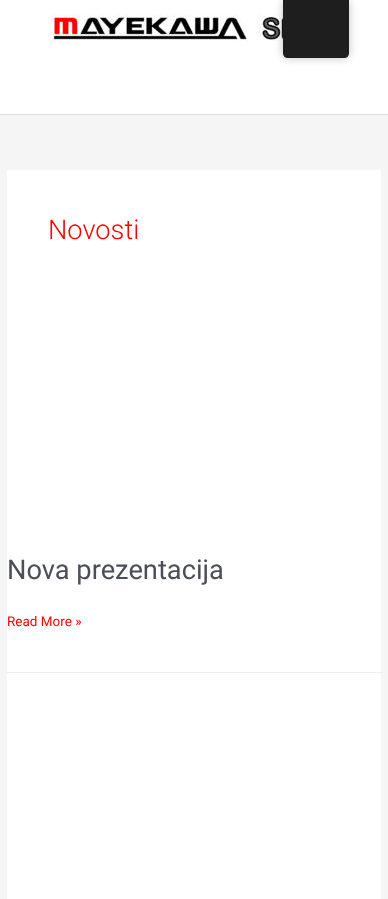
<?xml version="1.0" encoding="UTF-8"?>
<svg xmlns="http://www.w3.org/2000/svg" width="388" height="899">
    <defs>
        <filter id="blur1" x="-50%" y="-200%" width="200%" height="500%"><feGaussianBlur stdDeviation="4"/></filter>
    </defs>
    <rect width="100%" height="100%" fill="#F5F5F5"/>
    <rect x="0" y="0" width="388" height="114" fill="#FFFFFF"/>
    <image x="49" y="14" width="234" height="27" href="img_01.png"/>
    <rect x="283" y="0" width="66" height="58" rx="5" fill="#000000" fill-opacity="0.25" filter="url(#blur1)"/>
    <path d="M 283 0 H 349 V 53 C 349 56 347 58 344 58 H 288 C 285 58 283 56 283 53 Z" fill="#1E1E1E"/>
    <rect x="0" y="114" width="388" height="1" fill="#DDDDDD"/>
    <rect x="7" y="170" width="374" height="502" fill="#FFFFFF"/>
    <text x="48" y="239" font-family="Roboto" font-size="27.25" font-weight="300" fill="#FF0000">Novosti</text>
    <rect x="7" y="672" width="374" height="1" fill="#EEEEEE"/>
    <text x="7" y="579" font-family="Roboto" font-size="27.25" fill="#4B4F58">Nova prezentacija</text>
    <text x="7" y="626" font-family="Roboto" font-size="13.5" fill="#FF0000">Read More »</text>
    <rect x="7" y="673" width="374" height="226" fill="#FFFFFF"/>
</svg>
